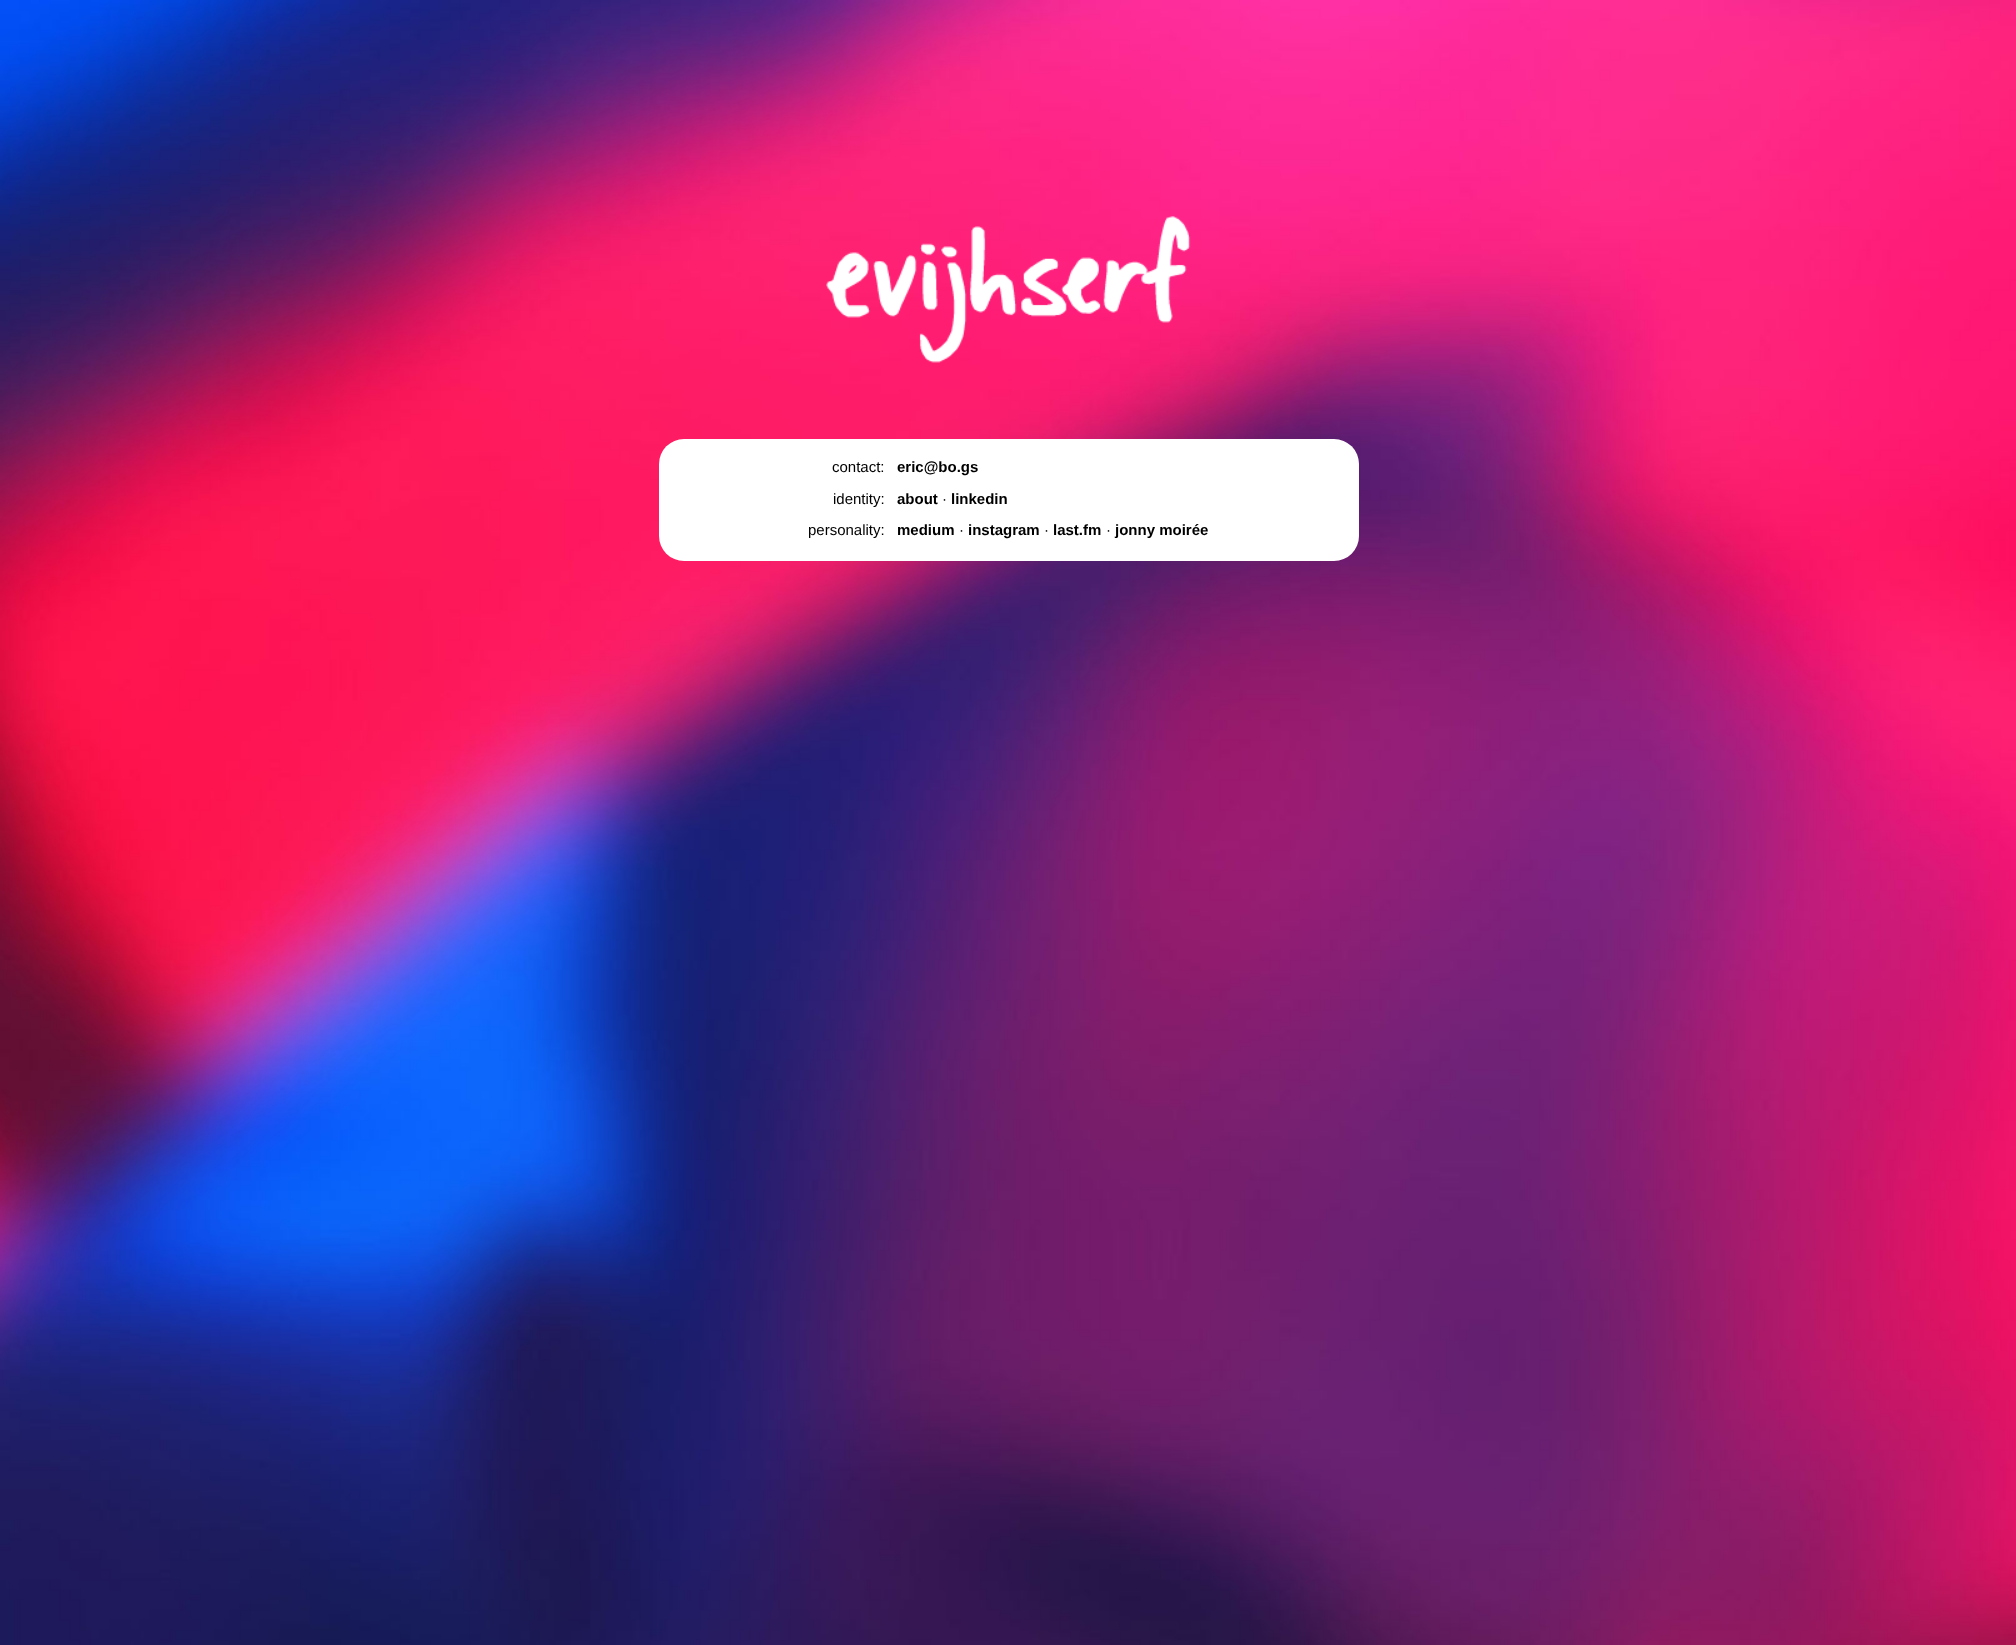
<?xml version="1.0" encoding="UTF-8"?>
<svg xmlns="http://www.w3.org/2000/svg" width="2016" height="1645">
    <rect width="100%" height="100%" fill="#FFFFFF"/>
    <image x="0" y="0" width="2016" height="1645" href="img_01.png"/>
    <image x="826" y="216" width="365" height="147" href="img_02.png"/>
    <rect x="659" y="439" width="700" height="122" rx="25" fill="#FFFFFF"/>
    <text x="832" y="472" font-family="Liberation Sans" font-size="15" fill="#000000">contact:</text>
    <text x="897" y="472" font-family="Liberation Sans" font-size="15" font-weight="700" fill="#000000">eric@bo.gs</text>
    <text x="833" y="504" font-family="Liberation Sans" font-size="15" fill="#000000">identity:</text>
    <text x="897" y="504" font-family="Liberation Sans" font-size="15" font-weight="700" fill="#000000">about</text>
    <text x="942" y="504" font-family="Liberation Sans" font-size="15" fill="#000000">·</text>
    <text x="951" y="504" font-family="Liberation Sans" font-size="15" font-weight="700" fill="#000000">linkedin</text>
    <text x="808" y="535" font-family="Liberation Sans" font-size="15" fill="#000000">personality:</text>
    <text x="897" y="535" font-family="Liberation Sans" font-size="15" font-weight="700" fill="#000000">medium</text>
    <text x="959" y="535" font-family="Liberation Sans" font-size="15" fill="#000000">·</text>
    <text x="968" y="535" font-family="Liberation Sans" font-size="15" font-weight="700" fill="#000000">instagram</text>
    <text x="1044" y="535" font-family="Liberation Sans" font-size="15" fill="#000000">·</text>
    <text x="1053" y="535" font-family="Liberation Sans" font-size="15" font-weight="700" fill="#000000">last.fm</text>
    <text x="1106" y="535" font-family="Liberation Sans" font-size="15" fill="#000000">·</text>
    <text x="1115" y="535" font-family="Liberation Sans" font-size="15" font-weight="700" fill="#000000">jonny moirée</text>
</svg>
